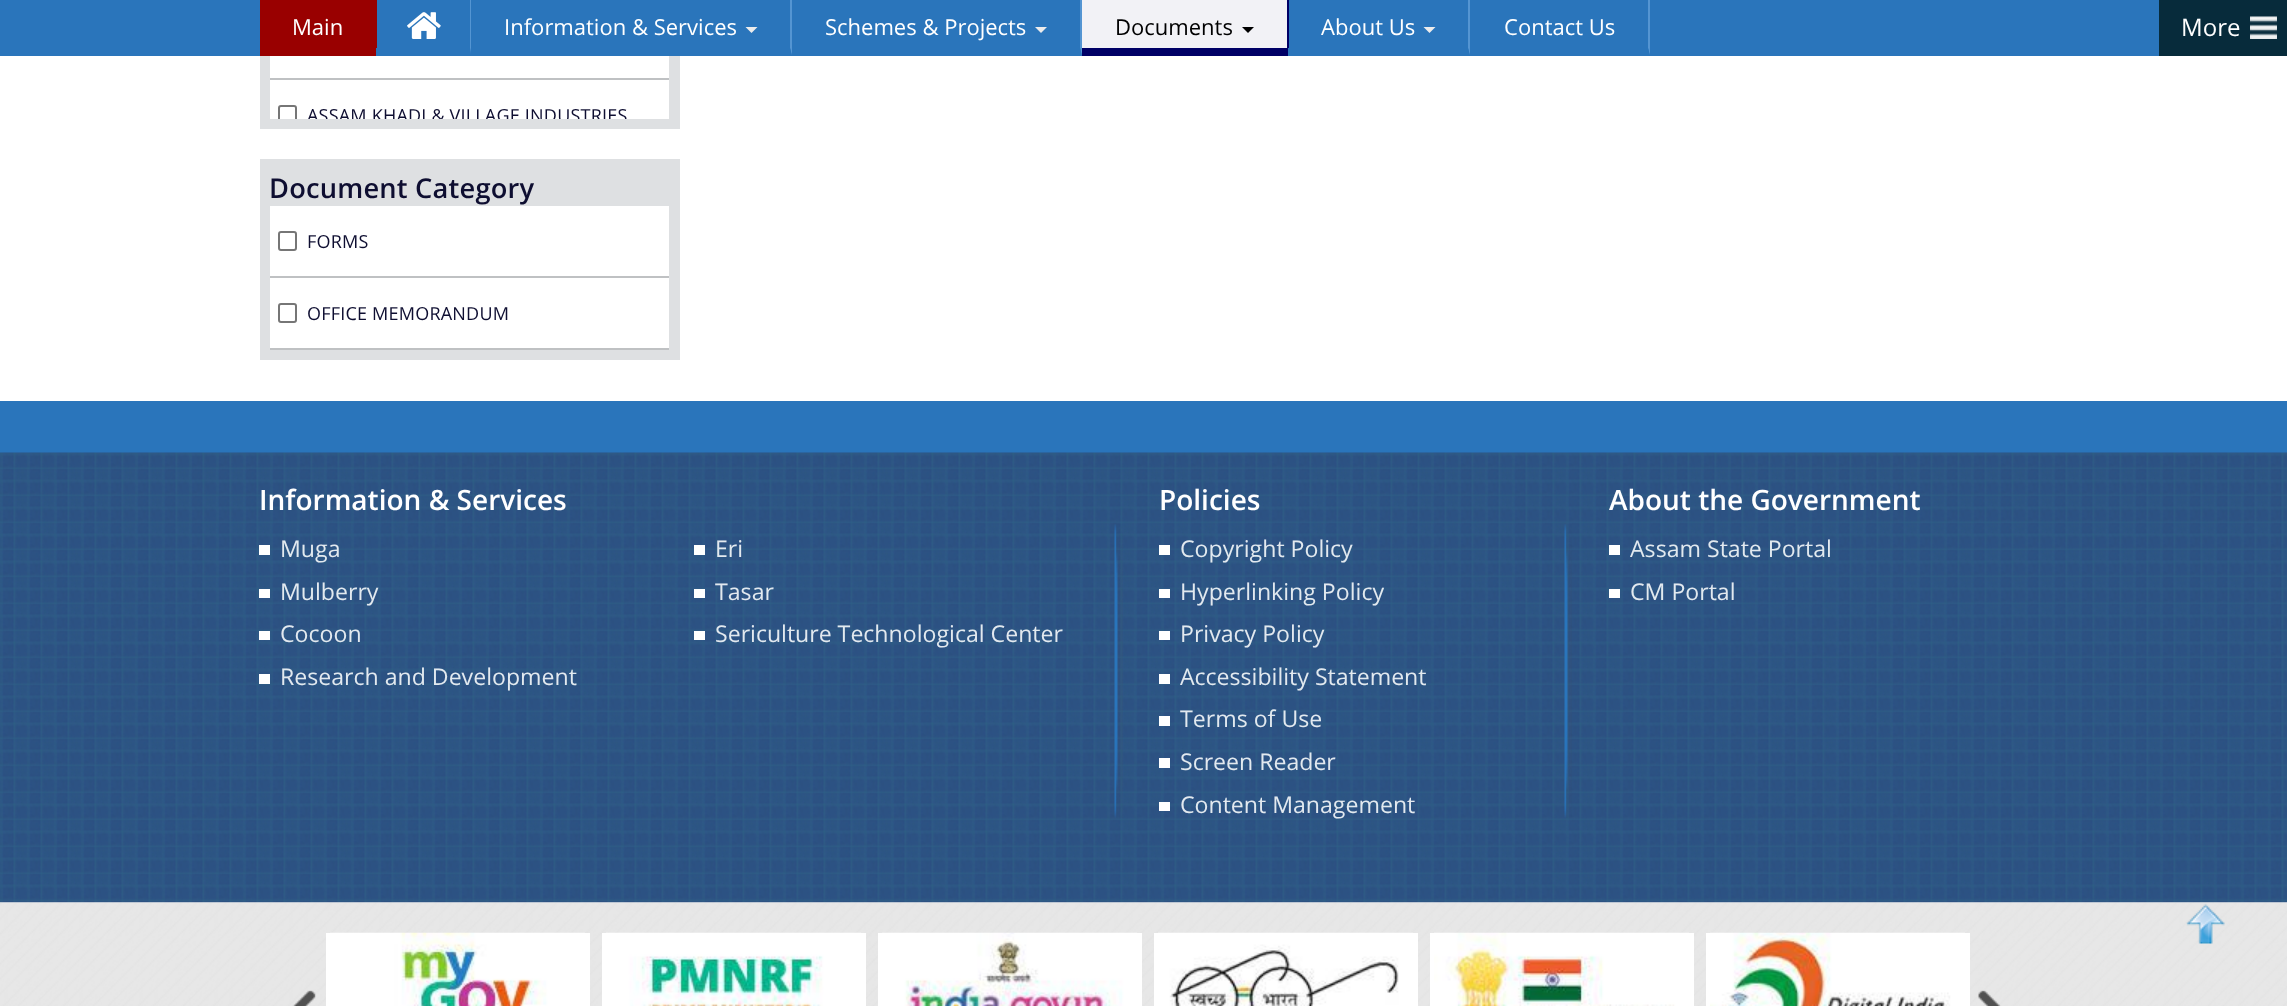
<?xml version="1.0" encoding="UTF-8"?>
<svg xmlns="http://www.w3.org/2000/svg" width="2287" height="1006">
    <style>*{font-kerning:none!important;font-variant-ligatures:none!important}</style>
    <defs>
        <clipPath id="clip1"><rect x="270" y="0" width="399" height="119"/></clipPath>
        <filter id="blur1" x="-50%" y="-200%" width="200%" height="500%"><feGaussianBlur stdDeviation="1.5"/></filter>
    </defs>
    <rect width="100%" height="100%" fill="#FFFFFF"/>
    <rect x="0" y="0" width="2159" height="56" fill="#2A75BB"/>
    <rect x="260" y="0" width="117" height="56" fill="#990000"/>
    <text x="292" y="35" font-family="Open Sans" font-size="22" fill="#FFFFFF">Main</text>
    <path d="M 471 0 V 56 L 470 48 V 0 Z" fill="#5495D2"/>
    <path d="M 471 56 H 376 V 48 H 470 Z" fill="#2A75BB"/>
    <image x="407" y="12" width="34" height="27" href="img_01.png"/>
    <path d="M 792 0 V 56 L 790 48 V 0 Z" fill="#5495D2"/>
    <path d="M 792 56 H 471 V 48 H 790 Z" fill="#2A75BB"/>
    <text x="504" y="35" font-family="Open Sans" font-size="22" fill="#FFFFFF">Information &amp; Services</text>
    <path d="M 745.5 27 H 757.5 L 751.5 33 Z" fill="#ECECEC"/>
    <path d="M 1082 0 V 56 L 1080 48 V 0 Z" fill="#5495D2"/>
    <path d="M 1082 56 H 792 V 48 H 1080 Z" fill="#2A75BB"/>
    <text x="825" y="35" font-family="Open Sans" font-size="22" fill="#FFFFFF">Schemes &amp; Projects</text>
    <path d="M 1035 27 H 1047 L 1041 33 Z" fill="#ECECEC"/>
    <rect x="1082" y="0" width="205" height="48" fill="#F2F2F6"/>
    <rect x="1287" y="0" width="2" height="56" fill="#000066"/>
    <rect x="1082" y="48" width="207" height="8" fill="#000066"/>
    <text x="1115" y="35" font-family="Open Sans" font-size="22" fill="#000000">Documents</text>
    <path d="M 1242 27 H 1254 L 1248 33 Z" fill="#000000"/>
    <path d="M 1470 0 V 56 L 1468 48 V 0 Z" fill="#5495D2"/>
    <path d="M 1470 56 H 1288 V 48 H 1468 Z" fill="#2A75BB"/>
    <text x="1321" y="35" font-family="Open Sans" font-size="22" fill="#FFFFFF">About Us</text>
    <path d="M 1423.5 27 H 1435.5 L 1429.5 33 Z" fill="#ECECEC"/>
    <path d="M 1650 0 V 56 L 1648 48 V 0 Z" fill="#5495D2"/>
    <path d="M 1650 56 H 1470 V 48 H 1648 Z" fill="#2A75BB"/>
    <text x="1504" y="35" font-family="Open Sans" font-size="22" fill="#FFFFFF">Contact Us</text>
    <rect x="2159" y="0" width="128" height="56" fill="#072B3B"/>
    <image x="2250" y="16" width="27" height="23" href="img_02.png"/>
    <text x="2181" y="36" font-family="Open Sans" font-size="24" fill="#FFFFFF">More</text>
    <rect x="260" y="56" width="420" height="73" fill="#DEE0E2"/>
    <rect x="270" y="56" width="399" height="22" fill="#FFFFFF"/>
    <rect x="270" y="78" width="399" height="2" fill="#BFC1C3"/>
    <rect x="270" y="80" width="399" height="39" fill="#FFFFFF"/>
    <g clip-path="url(#clip1)">
        <rect x="279" y="106" width="17" height="18" rx="2" fill="none" stroke="#767676" stroke-width="2"/>
        <text x="307" y="122" font-family="Open Sans" font-size="18" letter-spacing="0.2" fill="#0E0E31">ASSAM KHADI &amp; VILLAGE INDUSTRIES</text>
    </g>
    <rect x="260" y="159" width="420" height="201" fill="#DEE0E2"/>
    <text x="269" y="198" font-family="Open Sans" font-size="27.25" font-weight="600" letter-spacing="0.2" fill="#0E0E31">Document Category</text>
    <rect x="270" y="206" width="399" height="70" fill="#FFFFFF"/>
    <rect x="270" y="276" width="399" height="2" fill="#BFC1C3"/>
    <rect x="279" y="232" width="17" height="18" rx="2" fill="none" stroke="#767676" stroke-width="2"/>
    <text x="307" y="248" font-family="Open Sans" font-size="18" letter-spacing="0.2" fill="#0E0E31">FORMS</text>
    <rect x="270" y="278" width="399" height="70" fill="#FFFFFF"/>
    <rect x="270" y="348" width="399" height="2" fill="#BFC1C3"/>
    <rect x="279" y="304" width="17" height="18" rx="2" fill="none" stroke="#767676" stroke-width="2"/>
    <text x="307" y="320" font-family="Open Sans" font-size="18" letter-spacing="0.2" fill="#0E0E31">OFFICE MEMORANDUM</text>
    <rect x="0" y="401" width="2287" height="52" fill="#2A75BB"/>
    <image x="0" y="452" width="2287" height="451" href="img_03.png"/>
    <image x="1114" y="524" width="9" height="294" href="img_04.png"/>
    <text x="259" y="510" font-family="Open Sans" font-size="28" font-weight="600" fill="#FFFFFF">Information &amp; Services</text>
    <rect x="259" y="545" width="11" height="10" fill="#FFFFFF"/>
    <text x="280" y="557" font-family="Open Sans" font-size="23.1" fill="#E2E9EF">Muga</text>
    <rect x="694" y="545" width="11" height="10" fill="#FFFFFF"/>
    <text x="715" y="557" font-family="Open Sans" font-size="23.1" fill="#E2E9EF">Eri</text>
    <rect x="259" y="589" width="11" height="9" fill="#FFFFFF"/>
    <text x="280" y="600" font-family="Open Sans" font-size="23.1" fill="#E2E9EF">Mulberry</text>
    <rect x="694" y="589" width="11" height="9" fill="#FFFFFF"/>
    <text x="715" y="600" font-family="Open Sans" font-size="23.1" fill="#E2E9EF">Tasar</text>
    <rect x="259" y="631" width="11" height="9" fill="#FFFFFF"/>
    <text x="280" y="642" font-family="Open Sans" font-size="23.1" fill="#E2E9EF">Cocoon</text>
    <rect x="694" y="631" width="11" height="9" fill="#FFFFFF"/>
    <text x="715" y="642" font-family="Open Sans" font-size="23.1" fill="#E2E9EF">Sericulture Technological Center</text>
    <rect x="259" y="674" width="11" height="10" fill="#FFFFFF"/>
    <text x="280" y="685" font-family="Open Sans" font-size="23.1" fill="#E2E9EF">Research and Development</text>
    <image x="1564" y="524" width="8" height="294" href="img_05.png"/>
    <text x="1159" y="510" font-family="Open Sans" font-size="28" font-weight="600" fill="#FFFFFF">Policies</text>
    <rect x="1159" y="545" width="11" height="10" fill="#FFFFFF"/>
    <text x="1180" y="557" font-family="Open Sans" font-size="23.1" fill="#E2E9EF">Copyright Policy</text>
    <rect x="1159" y="589" width="11" height="9" fill="#FFFFFF"/>
    <text x="1180" y="600" font-family="Open Sans" font-size="23.1" fill="#E2E9EF">Hyperlinking Policy</text>
    <rect x="1159" y="631" width="11" height="9" fill="#FFFFFF"/>
    <text x="1180" y="642" font-family="Open Sans" font-size="23.1" fill="#E2E9EF">Privacy Policy</text>
    <rect x="1159" y="674" width="11" height="10" fill="#FFFFFF"/>
    <text x="1180" y="685" font-family="Open Sans" font-size="23.1" fill="#E2E9EF">Accessibility Statement</text>
    <rect x="1159" y="716" width="11" height="10" fill="#FFFFFF"/>
    <text x="1180" y="727" font-family="Open Sans" font-size="23.1" fill="#E2E9EF">Terms of Use</text>
    <rect x="1159" y="758" width="11" height="10" fill="#FFFFFF"/>
    <text x="1180" y="770" font-family="Open Sans" font-size="23.1" fill="#E2E9EF">Screen Reader</text>
    <rect x="1159" y="802" width="11" height="9" fill="#FFFFFF"/>
    <text x="1180" y="813" font-family="Open Sans" font-size="23.1" fill="#E2E9EF">Content Management</text>
    <text x="1609" y="510" font-family="Open Sans" font-size="28" font-weight="600" fill="#FFFFFF">About the Government</text>
    <rect x="1609" y="545" width="11" height="10" fill="#FFFFFF"/>
    <text x="1630" y="557" font-family="Open Sans" font-size="23.1" fill="#E2E9EF">Assam State Portal</text>
    <rect x="1609" y="589" width="11" height="9" fill="#FFFFFF"/>
    <text x="1630" y="600" font-family="Open Sans" font-size="23.1" fill="#E2E9EF">CM Portal</text>
    <rect x="0" y="905" width="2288" height="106" fill="#999999" filter="url(#blur1)"/>
    <image x="0" y="902" width="2287" height="104" href="img_06.png"/>
    <image x="292" y="990" width="24" height="16" href="img_07.png"/>
    <rect x="326" y="933" width="264" height="73" fill="#FFFFFF"/>
    <image x="330" y="932" width="255" height="74" href="img_08.png"/>
    <rect x="602" y="933" width="264" height="73" fill="#FFFFFF"/>
    <image x="606" y="932" width="255" height="74" href="img_09.png"/>
    <rect x="878" y="933" width="264" height="73" fill="#FFFFFF"/>
    <image x="882" y="932" width="255" height="74" href="img_10.png"/>
    <rect x="1154" y="933" width="264" height="73" fill="#FFFFFF"/>
    <image x="1158" y="932" width="255" height="74" href="img_11.png"/>
    <rect x="1430" y="933" width="264" height="73" fill="#FFFFFF"/>
    <image x="1434" y="932" width="255" height="74" href="img_12.png"/>
    <rect x="1706" y="933" width="264" height="73" fill="#FFFFFF"/>
    <image x="1710" y="932" width="255" height="74" href="img_13.png"/>
    <image x="1978" y="990" width="23" height="16" href="img_14.png"/>
    <image x="2186" y="904" width="39" height="40" href="img_15.png"/>
</svg>
